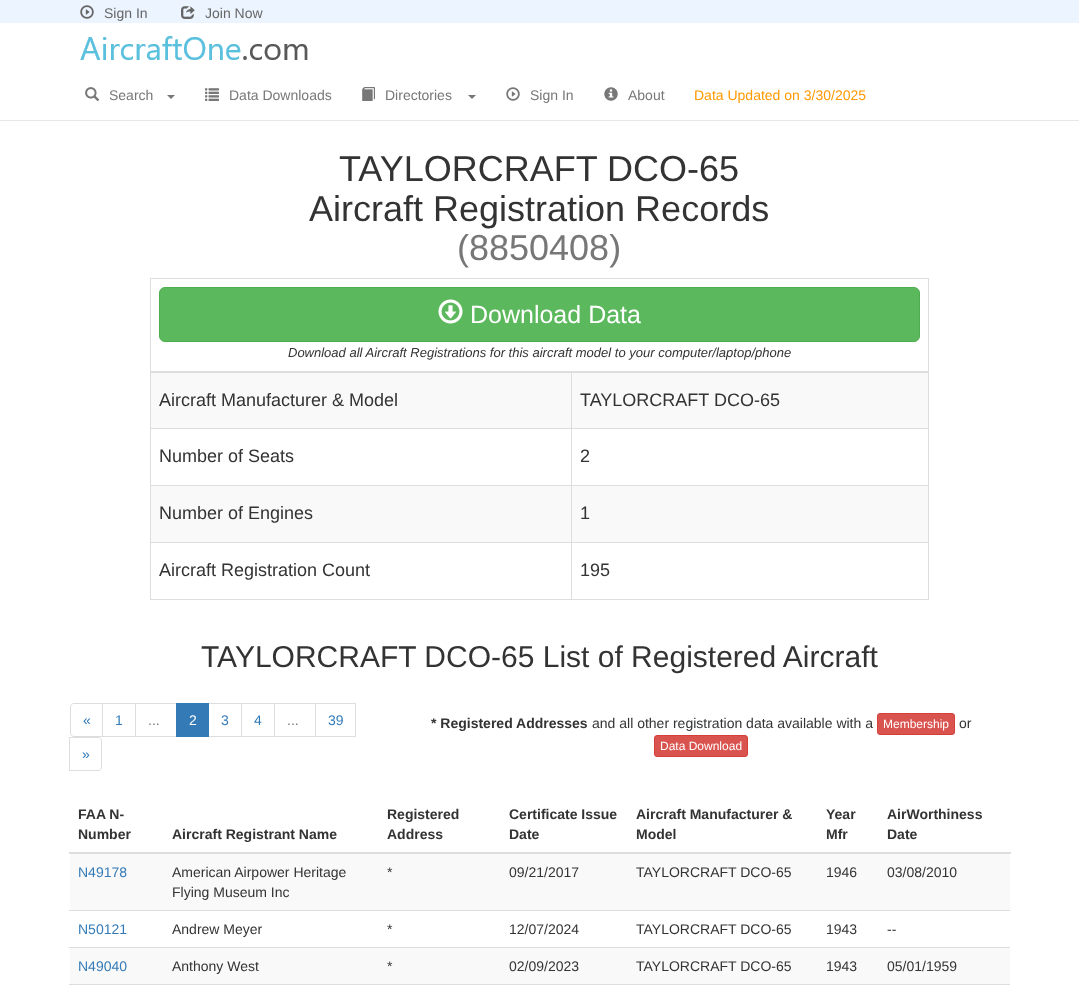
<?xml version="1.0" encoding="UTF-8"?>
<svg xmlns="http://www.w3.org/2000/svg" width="1079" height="992">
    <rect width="100%" height="100%" fill="#FFFFFF"/>
    <rect x="0" y="0" width="1079" height="23" fill="#EBF4FF"/>
    <image x="80" y="5" width="14" height="14" href="img_01.png"/>
    <text x="104" y="18" font-family="Liberation Sans" font-size="14" fill="#666666">Sign In</text>
    <image x="181" y="6" width="14" height="13" href="img_02.png"/>
    <text x="205" y="18" font-family="Liberation Sans" font-size="14" fill="#666666">Join Now</text>
    <rect x="0" y="120" width="1079" height="1" fill="#E7E7E7"/>
    <image x="80" y="36" width="228" height="24" href="img_03.png"/>
    <image x="85" y="87" width="14" height="14" href="img_04.png"/>
    <text x="109" y="100" font-family="Liberation Sans" font-size="14" fill="#777777">Search</text>
    <path d="M 167 95 H 175 L 171 99 Z" fill="#777777"/>
    <image x="205" y="88" width="14" height="13" href="img_05.png"/>
    <text x="229" y="100" font-family="Liberation Sans" font-size="14" fill="#777777">Data Downloads</text>
    <image x="362" y="87" width="13" height="14" href="img_06.png"/>
    <text x="385" y="100" font-family="Liberation Sans" font-size="14" fill="#777777">Directories</text>
    <path d="M 468 95 H 476 L 472 99 Z" fill="#777777"/>
    <image x="506" y="87" width="14" height="14" href="img_07.png"/>
    <text x="530" y="100" font-family="Liberation Sans" font-size="14" fill="#777777">Sign In</text>
    <image x="604" y="87" width="14" height="14" href="img_08.png"/>
    <text x="628" y="100" font-family="Liberation Sans" font-size="14" fill="#777777">About</text>
    <text x="694" y="100" font-family="Liberation Sans" font-size="14" fill="#FF9900">Data Updated on 3/30/2025</text>
    <text x="339" y="181" font-family="Liberation Sans" font-size="36" fill="#333333">TAYLORCRAFT DCO-65</text>
    <text x="309" y="221" font-family="Liberation Sans" font-size="36" fill="#333333">Aircraft Registration Records</text>
    <text x="457" y="260" font-family="Liberation Sans" font-size="36" fill="#777777">(8850408)</text>
    <rect x="150" y="278" width="779" height="1" fill="#DDDDDD"/>
    <rect x="928" y="278" width="1" height="322" fill="#DDDDDD"/>
    <rect x="150" y="599" width="779" height="1" fill="#DDDDDD"/>
    <rect x="150" y="278" width="1" height="322" fill="#DDDDDD"/>
    <rect x="151" y="373" width="777" height="55" fill="#F9F9F9"/>
    <rect x="150" y="428" width="779" height="1" fill="#DDDDDD"/>
    <rect x="151" y="486" width="777" height="56" fill="#F9F9F9"/>
    <rect x="150" y="485" width="779" height="1" fill="#DDDDDD"/>
    <rect x="150" y="542" width="779" height="1" fill="#DDDDDD"/>
    <rect x="571" y="542" width="1" height="58" fill="#DDDDDD"/>
    <rect x="571" y="485" width="1" height="58" fill="#DDDDDD"/>
    <rect x="571" y="371" width="1" height="115" fill="#DDDDDD"/>
    <rect x="150" y="371" width="779" height="2" fill="#DDDDDD"/>
    <rect x="159.5" y="287.5" width="760" height="54" rx="5.5" fill="#5CB85C" stroke="#4CAE4C"/>
    <image x="438" y="299" width="25" height="25" href="img_09.png"/>
    <text x="470" y="323" font-family="Liberation Sans" font-size="25" fill="#FFFFFF">Download Data</text>
    <text x="288" y="357" font-family="Liberation Sans" font-size="13" font-style="italic" fill="#333333">Download all Aircraft Registrations for this aircraft model to your computer/laptop/phone</text>
    <text x="159" y="406" font-family="Liberation Sans" font-size="18" fill="#333333">Aircraft Manufacturer &amp; Model</text>
    <text x="580" y="406" font-family="Liberation Sans" font-size="18" fill="#333333">TAYLORCRAFT DCO-65</text>
    <text x="159" y="462" font-family="Liberation Sans" font-size="18" fill="#333333">Number of Seats</text>
    <text x="580" y="462" font-family="Liberation Sans" font-size="18" fill="#333333">2</text>
    <text x="159" y="519" font-family="Liberation Sans" font-size="18" fill="#333333">Number of Engines</text>
    <text x="580" y="519" font-family="Liberation Sans" font-size="18" fill="#333333">1</text>
    <text x="159" y="576" font-family="Liberation Sans" font-size="18" fill="#333333">Aircraft Registration Count</text>
    <text x="580" y="576" font-family="Liberation Sans" font-size="18" fill="#333333">195</text>
    <text x="201" y="667" font-family="Liberation Sans" font-size="30" fill="#333333">TAYLORCRAFT DCO-65 List of Registered Aircraft</text>
    <path d="M 74 703.5 H 102.5 V 736.5 H 74 C 72 736.5 70.5 735 70.5 733 V 707 C 70.5 705 72 703.5 74 703.5 Z" fill="none" stroke="#DDDDDD"/>
    <text x="83" y="725" font-family="Liberation Sans" font-size="14" fill="#337AB7">«</text>
    <rect x="102.5" y="703.5" width="33" height="33" fill="none" stroke="#DDDDDD"/>
    <text x="115" y="725" font-family="Liberation Sans" font-size="14" fill="#337AB7">1</text>
    <rect x="135.5" y="703.5" width="41" height="33" fill="none" stroke="#DDDDDD"/>
    <text x="148" y="725" font-family="Liberation Sans" font-size="14" fill="#777777">...</text>
    <rect x="208.5" y="703.5" width="33" height="33" fill="none" stroke="#DDDDDD"/>
    <rect x="176" y="703" width="33" height="34" fill="#337AB7"/>
    <text x="189" y="725" font-family="Liberation Sans" font-size="14" fill="#FFFFFF">2</text>
    <text x="221" y="725" font-family="Liberation Sans" font-size="14" fill="#337AB7">3</text>
    <rect x="241.5" y="703.5" width="33" height="33" fill="none" stroke="#DDDDDD"/>
    <text x="254" y="725" font-family="Liberation Sans" font-size="14" fill="#337AB7">4</text>
    <rect x="274.5" y="703.5" width="41" height="33" fill="none" stroke="#DDDDDD"/>
    <text x="287" y="725" font-family="Liberation Sans" font-size="14" fill="#777777">...</text>
    <rect x="315.5" y="703.5" width="40" height="33" fill="none" stroke="#DDDDDD"/>
    <text x="328" y="725" font-family="Liberation Sans" font-size="14" fill="#337AB7">39</text>
    <path d="M 69.5 737.5 H 98 C 100 737.5 101.5 739 101.5 741 V 767 C 101.5 769 100 770.5 98 770.5 H 69.5 Z" fill="none" stroke="#DDDDDD"/>
    <text x="82" y="759" font-family="Liberation Sans" font-size="14" fill="#337AB7">»</text>
    <text x="431" y="728" font-family="Liberation Sans" font-size="14" font-weight="700" fill="#333333">* Registered Addresses</text>
    <text x="592" y="728" font-family="Liberation Sans" font-size="14" fill="#333333">and all other registration data available with a</text>
    <rect x="877.5" y="713.5" width="77" height="21" rx="2.5" fill="#D9534F" stroke="#D43F3A"/>
    <text x="883" y="728" font-family="Liberation Sans" font-size="12" fill="#FFFFFF">Membership</text>
    <text x="959" y="728" font-family="Liberation Sans" font-size="14" fill="#333333">or</text>
    <rect x="654.5" y="735.5" width="93" height="21" rx="2.5" fill="#D9534F" stroke="#D43F3A"/>
    <text x="660" y="750" font-family="Liberation Sans" font-size="12" fill="#FFFFFF">Data Download</text>
    <text font-family="Liberation Sans" font-size="14" font-weight="700" fill="#333333">
        <tspan x="78" y="819">FAA N-</tspan>
        <tspan x="78" y="839">Number</tspan>
    </text>
    <text x="172" y="839" font-family="Liberation Sans" font-size="14" font-weight="700" fill="#333333">Aircraft Registrant Name</text>
    <text font-family="Liberation Sans" font-size="14" font-weight="700" fill="#333333">
        <tspan x="387" y="819">Registered</tspan>
        <tspan x="387" y="839">Address</tspan>
    </text>
    <text font-family="Liberation Sans" font-size="14" font-weight="700" fill="#333333">
        <tspan x="509" y="819">Certificate Issue</tspan>
        <tspan x="509" y="839">Date</tspan>
    </text>
    <text font-family="Liberation Sans" font-size="14" font-weight="700" fill="#333333">
        <tspan x="636" y="819">Aircraft Manufacturer &amp;</tspan>
        <tspan x="636" y="839">Model</tspan>
    </text>
    <text font-family="Liberation Sans" font-size="14" font-weight="700" fill="#333333">
        <tspan x="826" y="819">Year</tspan>
        <tspan x="826" y="839">Mfr</tspan>
    </text>
    <rect x="69" y="852" width="942" height="2" fill="#DDDDDD"/>
    <text font-family="Liberation Sans" font-size="14" font-weight="700" fill="#333333">
        <tspan x="887" y="819">AirWorthiness</tspan>
        <tspan x="887" y="839">Date</tspan>
    </text>
    <rect x="70" y="854" width="940" height="56" fill="#F9F9F9"/>
    <text x="78" y="877" font-family="Liberation Sans" font-size="14" fill="#337AB7">N49178</text>
    <text font-family="Liberation Sans" font-size="14" fill="#333333">
        <tspan x="172" y="877">American Airpower Heritage</tspan>
        <tspan x="172" y="897">Flying Museum Inc</tspan>
    </text>
    <text x="387" y="877" font-family="Liberation Sans" font-size="14" fill="#333333">*</text>
    <text x="509" y="877" font-family="Liberation Sans" font-size="14" fill="#333333">09/21/2017</text>
    <text x="636" y="877" font-family="Liberation Sans" font-size="14" fill="#333333">TAYLORCRAFT DCO-65</text>
    <text x="826" y="877" font-family="Liberation Sans" font-size="14" fill="#333333">1946</text>
    <text x="887" y="877" font-family="Liberation Sans" font-size="14" fill="#333333">03/08/2010</text>
    <text x="78" y="934" font-family="Liberation Sans" font-size="14" fill="#337AB7">N50121</text>
    <text x="172" y="934" font-family="Liberation Sans" font-size="14" fill="#333333">Andrew Meyer</text>
    <text x="387" y="934" font-family="Liberation Sans" font-size="14" fill="#333333">*</text>
    <text x="509" y="934" font-family="Liberation Sans" font-size="14" fill="#333333">12/07/2024</text>
    <text x="636" y="934" font-family="Liberation Sans" font-size="14" fill="#333333">TAYLORCRAFT DCO-65</text>
    <text x="826" y="934" font-family="Liberation Sans" font-size="14" fill="#333333">1943</text>
    <rect x="69" y="910" width="941" height="1" fill="#DDDDDD"/>
    <text x="887" y="934" font-family="Liberation Sans" font-size="14" fill="#333333">--</text>
    <rect x="70" y="948" width="940" height="36" fill="#F9F9F9"/>
    <text x="78" y="971" font-family="Liberation Sans" font-size="14" fill="#337AB7">N49040</text>
    <text x="172" y="971" font-family="Liberation Sans" font-size="14" fill="#333333">Anthony West</text>
    <text x="387" y="971" font-family="Liberation Sans" font-size="14" fill="#333333">*</text>
    <text x="509" y="971" font-family="Liberation Sans" font-size="14" fill="#333333">02/09/2023</text>
    <text x="636" y="971" font-family="Liberation Sans" font-size="14" fill="#333333">TAYLORCRAFT DCO-65</text>
    <text x="826" y="971" font-family="Liberation Sans" font-size="14" fill="#333333">1943</text>
    <rect x="69" y="947" width="941" height="1" fill="#DDDDDD"/>
    <text x="887" y="971" font-family="Liberation Sans" font-size="14" fill="#333333">05/01/1959</text>
    <rect x="69" y="984" width="941" height="1" fill="#DDDDDD"/>
</svg>
